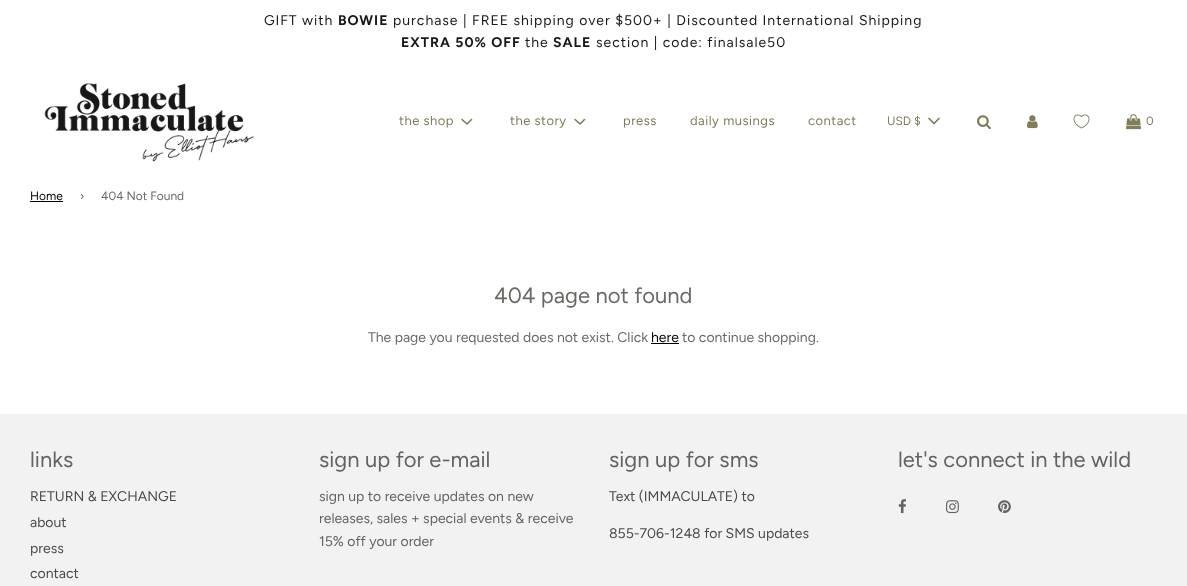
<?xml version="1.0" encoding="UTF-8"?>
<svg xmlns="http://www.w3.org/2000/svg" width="1187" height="586">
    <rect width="100%" height="100%" fill="#FFFFFF"/>
    <text x="264" y="25" font-family="Figtree" font-size="14" letter-spacing="1" fill="#191717">GIFT with</text>
    <text x="338" y="25" font-family="Figtree" font-size="14" font-weight="700" letter-spacing="1" fill="#191717">BOWIE</text>
    <text x="393" y="25" font-family="Figtree" font-size="14" letter-spacing="1" fill="#191717">purchase | FREE shipping over $500+ | Discounted International Shipping</text>
    <text x="401" y="47" font-family="Figtree" font-size="14" font-weight="700" letter-spacing="1" fill="#191717">EXTRA 50% OFF</text>
    <text x="525" y="47" font-family="Figtree" font-size="14" letter-spacing="1" fill="#191717">the</text>
    <text x="553" y="47" font-family="Figtree" font-size="14" font-weight="700" letter-spacing="1" fill="#191717">SALE</text>
    <text x="596" y="47" font-family="Figtree" font-size="14" letter-spacing="1" fill="#191717">section | code: finalsale50</text>
    <image x="44" y="83" width="210" height="79" href="img_01.png"/>
    <text x="399" y="125" font-family="Figtree" font-size="13" letter-spacing="0.5" fill="#817D58">the shop</text>
    <path d="M 462 119.5 L 467 124 L 471.5 119.5" fill="none" stroke="#817D58" stroke-width="1.6" stroke-linecap="round" stroke-linejoin="round"/>
    <text x="510" y="125" font-family="Figtree" font-size="13" letter-spacing="0.5" fill="#817D58">the story</text>
    <path d="M 575 119.5 L 580 124 L 584.5 119.5" fill="none" stroke="#817D58" stroke-width="1.6" stroke-linecap="round" stroke-linejoin="round"/>
    <text x="623" y="125" font-family="Figtree" font-size="13" letter-spacing="0.5" fill="#817D58">press</text>
    <text x="690" y="125" font-family="Figtree" font-size="13" letter-spacing="0.5" fill="#817D58">daily musings</text>
    <text x="808" y="125" font-family="Figtree" font-size="13" letter-spacing="0.5" fill="#817D58">contact</text>
    <text x="887" y="125" font-family="Figtree" font-size="12" fill="#817D58">USD $</text>
    <path d="M 929 118.5 L 934 123.5 L 939 118.5" fill="none" stroke="#817D58" stroke-width="1.7" stroke-linecap="round" stroke-linejoin="round"/>
    <image x="977" y="115" width="14" height="15" href="img_02.png"/>
    <image x="1027" y="115" width="11" height="14" href="img_03.png"/>
    <image x="1073" y="114" width="17" height="15" href="img_04.png"/>
    <image x="1126" y="114" width="15" height="16" href="img_05.png"/>
    <text x="1146" y="125" font-family="Figtree" font-size="12" fill="#817D58">0</text>
    <text x="30" y="200" font-family="Figtree" font-size="12" fill="#000000">Home</text>
    <rect x="30" y="201" width="33" height="1" fill="#000000"/>
    <text x="80" y="200" font-family="Figtree" font-size="12" fill="#696965">›</text>
    <text x="101" y="200" font-family="Figtree" font-size="12" fill="#696965">404 Not Found</text>
    <text x="494" y="303" font-family="Figtree" font-size="22" fill="#696965">404 page not found</text>
    <text x="368" y="342" font-family="Figtree" font-size="14" fill="#696965">The page you requested does not exist. Click</text>
    <text x="651" y="342" font-family="Figtree" font-size="14" fill="#000000">here</text>
    <rect x="651" y="343" width="28" height="1" fill="#000000"/>
    <text x="682" y="342" font-family="Figtree" font-size="14" fill="#696965">to continue shopping.</text>
    <rect x="0" y="414" width="1187" height="172" fill="#F2F2F2"/>
    <text x="30" y="467" font-family="Figtree" font-size="22" fill="#636363">links</text>
    <text font-family="Figtree" font-size="14" fill="#4A4A4A">
        <tspan x="30" y="501">RETURN &amp; EXCHANGE</tspan>
        <tspan x="30" y="527">about</tspan>
        <tspan x="30" y="553">press</tspan>
        <tspan x="30" y="578">contact</tspan>
    </text>
    <text x="319" y="467" font-family="Figtree" font-size="22" fill="#636363">sign up for e-mail</text>
    <text font-family="Figtree" font-size="14" fill="#636363">
        <tspan x="319" y="501">sign up to receive updates on new</tspan>
        <tspan x="319" y="523">releases, sales + special events &amp; receive</tspan>
        <tspan x="319" y="546">15% off your order</tspan>
    </text>
    <text x="609" y="467" font-family="Figtree" font-size="22" fill="#636363">sign up for sms</text>
    <text x="609" y="501" font-family="Figtree" font-size="14" fill="#4A4A4A">Text (IMMACULATE) to</text>
    <text x="609" y="538" font-family="Figtree" font-size="14" fill="#4A4A4A">855-706-1248 for SMS updates</text>
    <text x="898" y="467" font-family="Figtree" font-size="22" fill="#636363">let's connect in the wild</text>
    <image x="898" y="499" width="8" height="15" href="img_06.png"/>
    <image x="946" y="500" width="13" height="14" href="img_07.png"/>
    <image x="998" y="500" width="13" height="14" href="img_08.png"/>
</svg>
